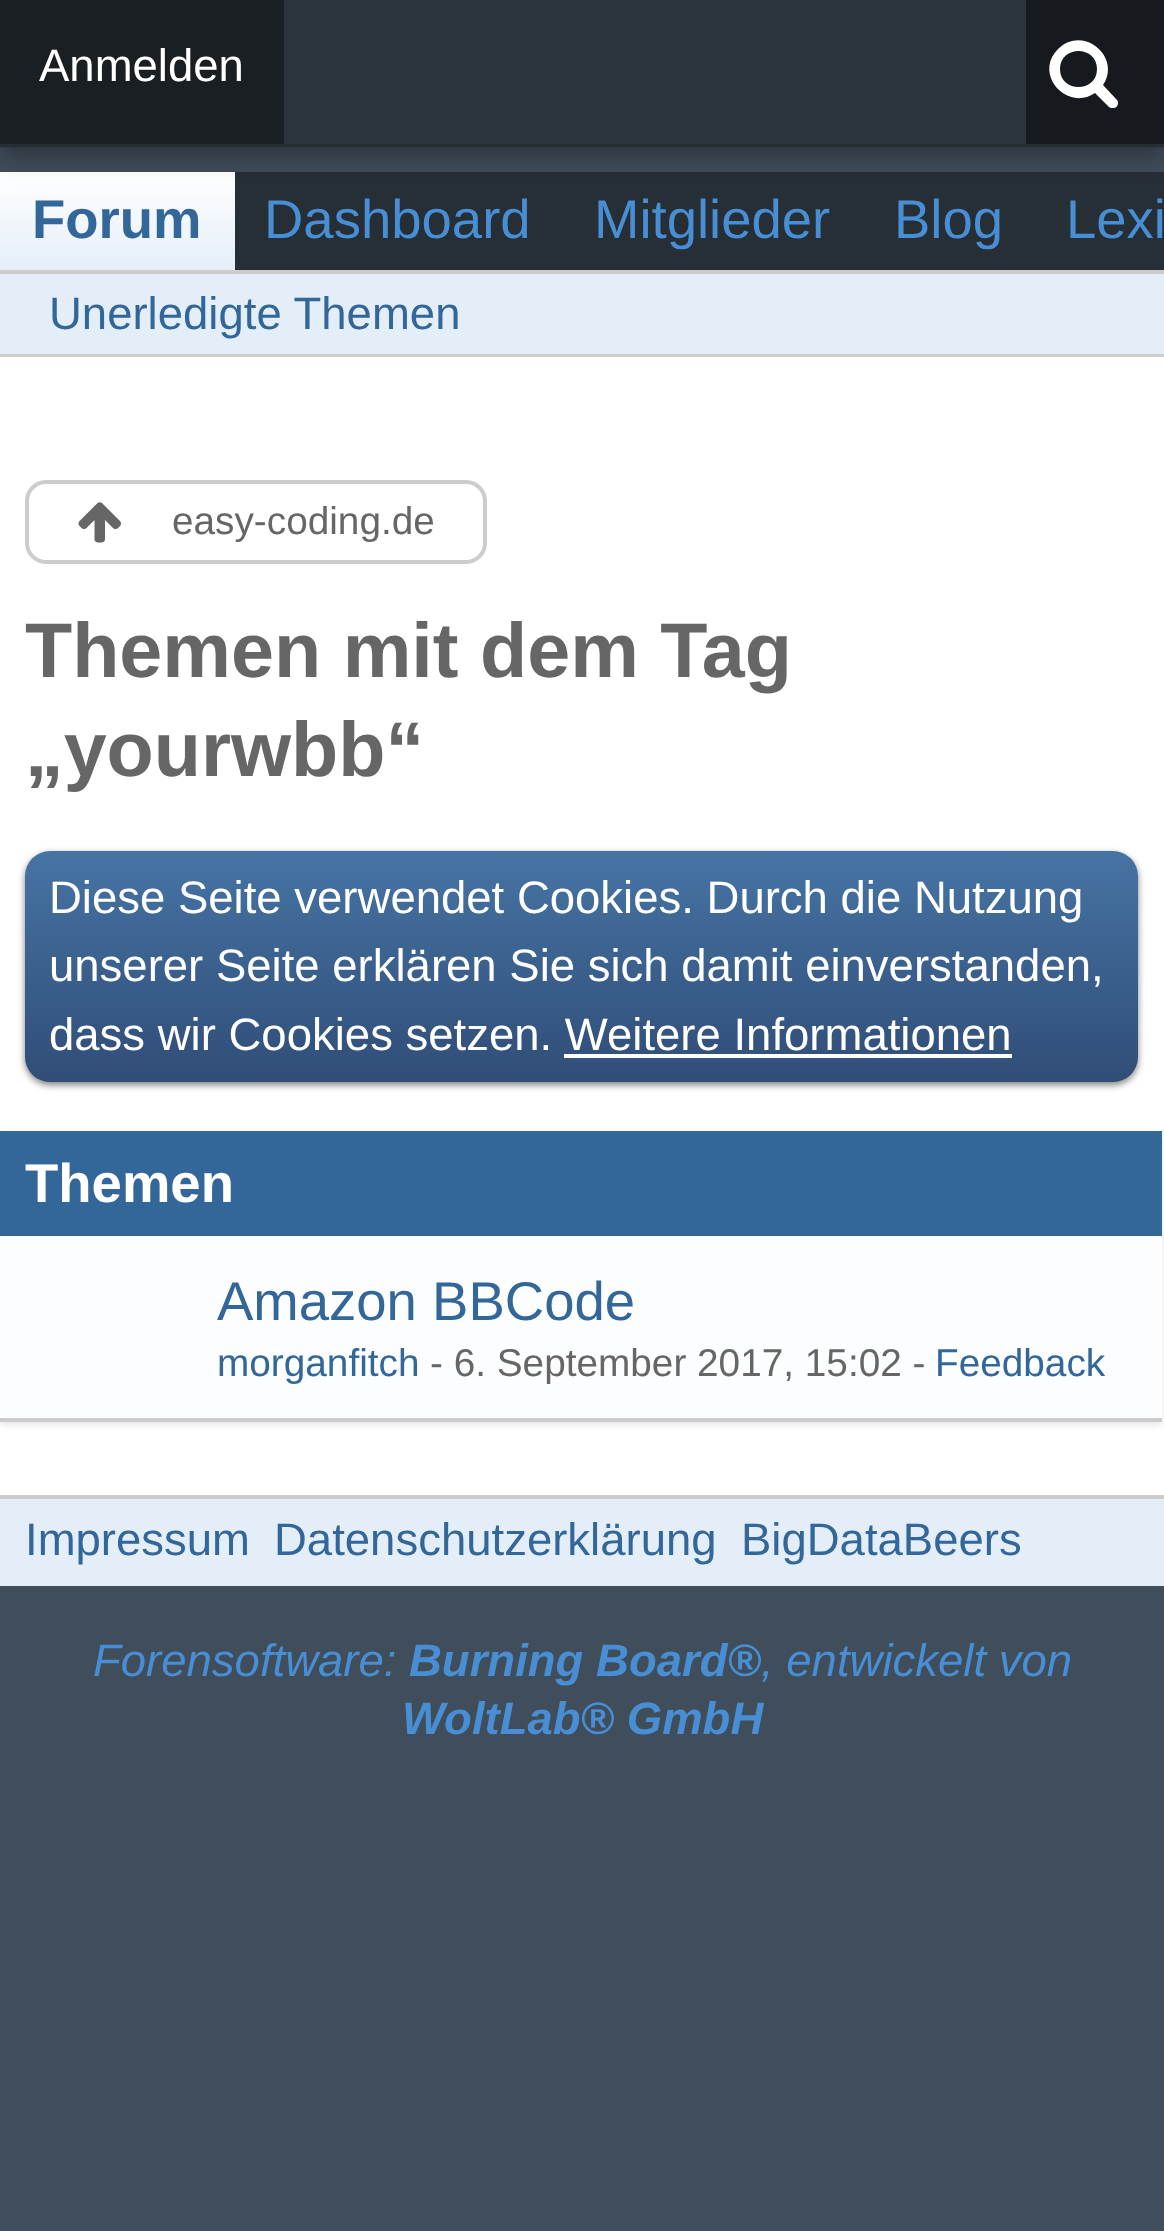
<?xml version="1.0" encoding="UTF-8"?>
<svg xmlns="http://www.w3.org/2000/svg" width="1164" height="2231">
    <defs>
        <linearGradient id="g1" gradientUnits="userSpaceOnUse" x1="117" y1="172" x2="117" y2="273"><stop offset="0" stop-color="#FFFFFF"/><stop offset="1" stop-color="#E4EEF8"/></linearGradient>
        <filter id="blur1" x="-50%" y="-200%" width="200%" height="500%"><feGaussianBlur stdDeviation="12"/></filter>
        <filter id="blur2" x="-50%" y="-200%" width="200%" height="500%"><feGaussianBlur stdDeviation="3.5"/></filter>
        <linearGradient id="g2" gradientUnits="userSpaceOnUse" x1="581" y1="850" x2="581" y2="1082"><stop offset="0" stop-color="#4674A4"/><stop offset="1" stop-color="#304D77"/></linearGradient>
    </defs>
    <rect width="100%" height="100%" fill="#404D5A"/>
    <rect x="235" y="172" width="929" height="98" fill="#262E36"/>
    <rect x="0" y="172" width="235" height="98" fill="url(#g1)"/>
    <rect x="0" y="11" width="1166" height="147" fill="#000000" fill-opacity="0.3" filter="url(#blur1)"/>
    <rect x="0" y="0" width="1164" height="147" fill="#2B343C"/>
    <rect x="0" y="144" width="1164" height="4" fill="#000000" fill-opacity="0.1"/>
    <rect x="0" y="0" width="284" height="144" fill="#1A1F24"/>
    <text x="39" y="81" font-family="Liberation Sans" font-size="45.5" fill="#FFFFFF">Anmelden</text>
    <rect x="1026" y="0" width="138" height="144" fill="#161A1E"/>
    <path d="M 1097 69 C 1097 93 1060 93 1060 69 C 1060 45 1097 45 1097 69 Z M 1118 103 C 1118 102 1118 101 1117 100 L 1103 85 C 1122 57 1083 24 1058 49 C 1033 74 1067 112 1095 93 L 1109 107 C 1110 108 1112 108 1113 108 C 1116 108 1118 106 1118 103 Z" fill="#FFFFFF"/>
    <text x="32" y="238" font-family="Liberation Sans" font-size="54.5" font-weight="700" fill="#336699">Forum</text>
    <text x="264" y="238" font-family="Liberation Sans" font-size="54.5" fill="#488ED4">Dashboard</text>
    <text x="594" y="238" font-family="Liberation Sans" font-size="54.5" fill="#488ED4">Mitglieder</text>
    <text x="894" y="238" font-family="Liberation Sans" font-size="54.5" fill="#488ED4">Blog</text>
    <text x="1066" y="238" font-family="Liberation Sans" font-size="54.5" fill="#488ED4">Lexi</text>
    <rect x="0" y="274" width="1164" height="80" fill="#E4EEF8"/>
    <rect x="0" y="270" width="1164" height="4" fill="#CCCCCC"/>
    <rect x="0" y="354" width="1164" height="3" fill="#CCCCCC"/>
    <text x="49" y="329" font-family="Liberation Sans" font-size="45.5" fill="#336699">Unerledigte Themen</text>
    <rect x="0" y="357" width="1164" height="1138" fill="#FFFFFF"/>
    <rect x="27" y="482" width="458" height="80" rx="19" fill="none" stroke="#CCCCCC" stroke-width="4"/>
    <image x="78" y="502" width="43" height="41" href="img_01.png"/>
    <text x="172" y="534" font-family="Liberation Sans" font-size="38.75" fill="#666666">easy-coding.de</text>
    <text font-family="Liberation Sans" font-size="77.25" font-weight="700" fill="#666666">
        <tspan x="25" y="677">Themen mit dem Tag</tspan>
        <tspan x="25" y="776">„yourwbb“</tspan>
    </text>
    <rect x="25" y="854" width="1113" height="231" rx="25" fill="#000000" fill-opacity="0.5" filter="url(#blur2)"/>
    <rect x="25" y="851" width="1113" height="231" rx="25" fill="url(#g2)"/>
    <text font-family="Liberation Sans" font-size="45.5" fill="#FFFFFF">
        <tspan x="49" y="913">Diese Seite verwendet Cookies. Durch die Nutzung</tspan>
        <tspan x="49" y="981">unserer Seite erklären Sie sich damit einverstanden,</tspan>
        <tspan x="49" y="1050">dass wir Cookies setzen. Weitere Informationen</tspan>
    </text>
    <rect x="564" y="1054" width="448" height="4" fill="#FFFFFF"/>
    <rect x="0" y="1134" width="1162" height="291" fill="#000000" fill-opacity="0.1" filter="url(#blur2)"/>
    <rect x="0" y="1131" width="1162" height="105" fill="#336699"/>
    <rect x="0" y="1418" width="1162" height="4" fill="#CCCCCC"/>
    <text x="25" y="1202" font-family="Liberation Sans" font-size="54.5" font-weight="700" fill="#FFFFFF">Themen</text>
    <rect x="0" y="1236" width="1162" height="182" fill="#FCFDFE"/>
    <rect x="1162" y="1236" width="1" height="182" fill="#FFFFFF" fill-opacity="0.3"/>
    <text x="217" y="1320" font-family="Liberation Sans" font-size="54.5" fill="#336699">Amazon BBCode</text>
    <text x="217" y="1376" font-family="Liberation Sans" font-size="38.75" fill="#336699">morganfitch</text>
    <text x="430" y="1376" font-family="Liberation Sans" font-size="38.75" fill="#666666">- 6. September 2017, 15:02 -</text>
    <text x="935" y="1376" font-family="Liberation Sans" font-size="38.75" fill="#336699">Feedback</text>
    <rect x="0" y="1499" width="1164" height="87" fill="#E4EEF8"/>
    <rect x="0" y="1495" width="1164" height="4" fill="#CCCCCC"/>
    <text x="25" y="1555" font-family="Liberation Sans" font-size="45.5" fill="#336699">Impressum</text>
    <text x="274" y="1555" font-family="Liberation Sans" font-size="45.5" fill="#336699">Datenschutzerklärung</text>
    <text x="741" y="1555" font-family="Liberation Sans" font-size="45.5" fill="#336699">BigDataBeers</text>
    <text x="93" y="1676" font-family="Liberation Sans" font-size="45.5" font-style="italic" fill="#488ED4">Forensoftware:</text>
    <text x="409" y="1676" font-family="Liberation Sans" font-size="45.5" font-weight="700" font-style="italic" fill="#488ED4">Burning Board®</text>
    <text x="761" y="1676" font-family="Liberation Sans" font-size="45.5" font-style="italic" fill="#488ED4">, entwickelt von</text>
    <text x="402" y="1734" font-family="Liberation Sans" font-size="45.5" font-weight="700" font-style="italic" fill="#488ED4">WoltLab® GmbH</text>
</svg>
